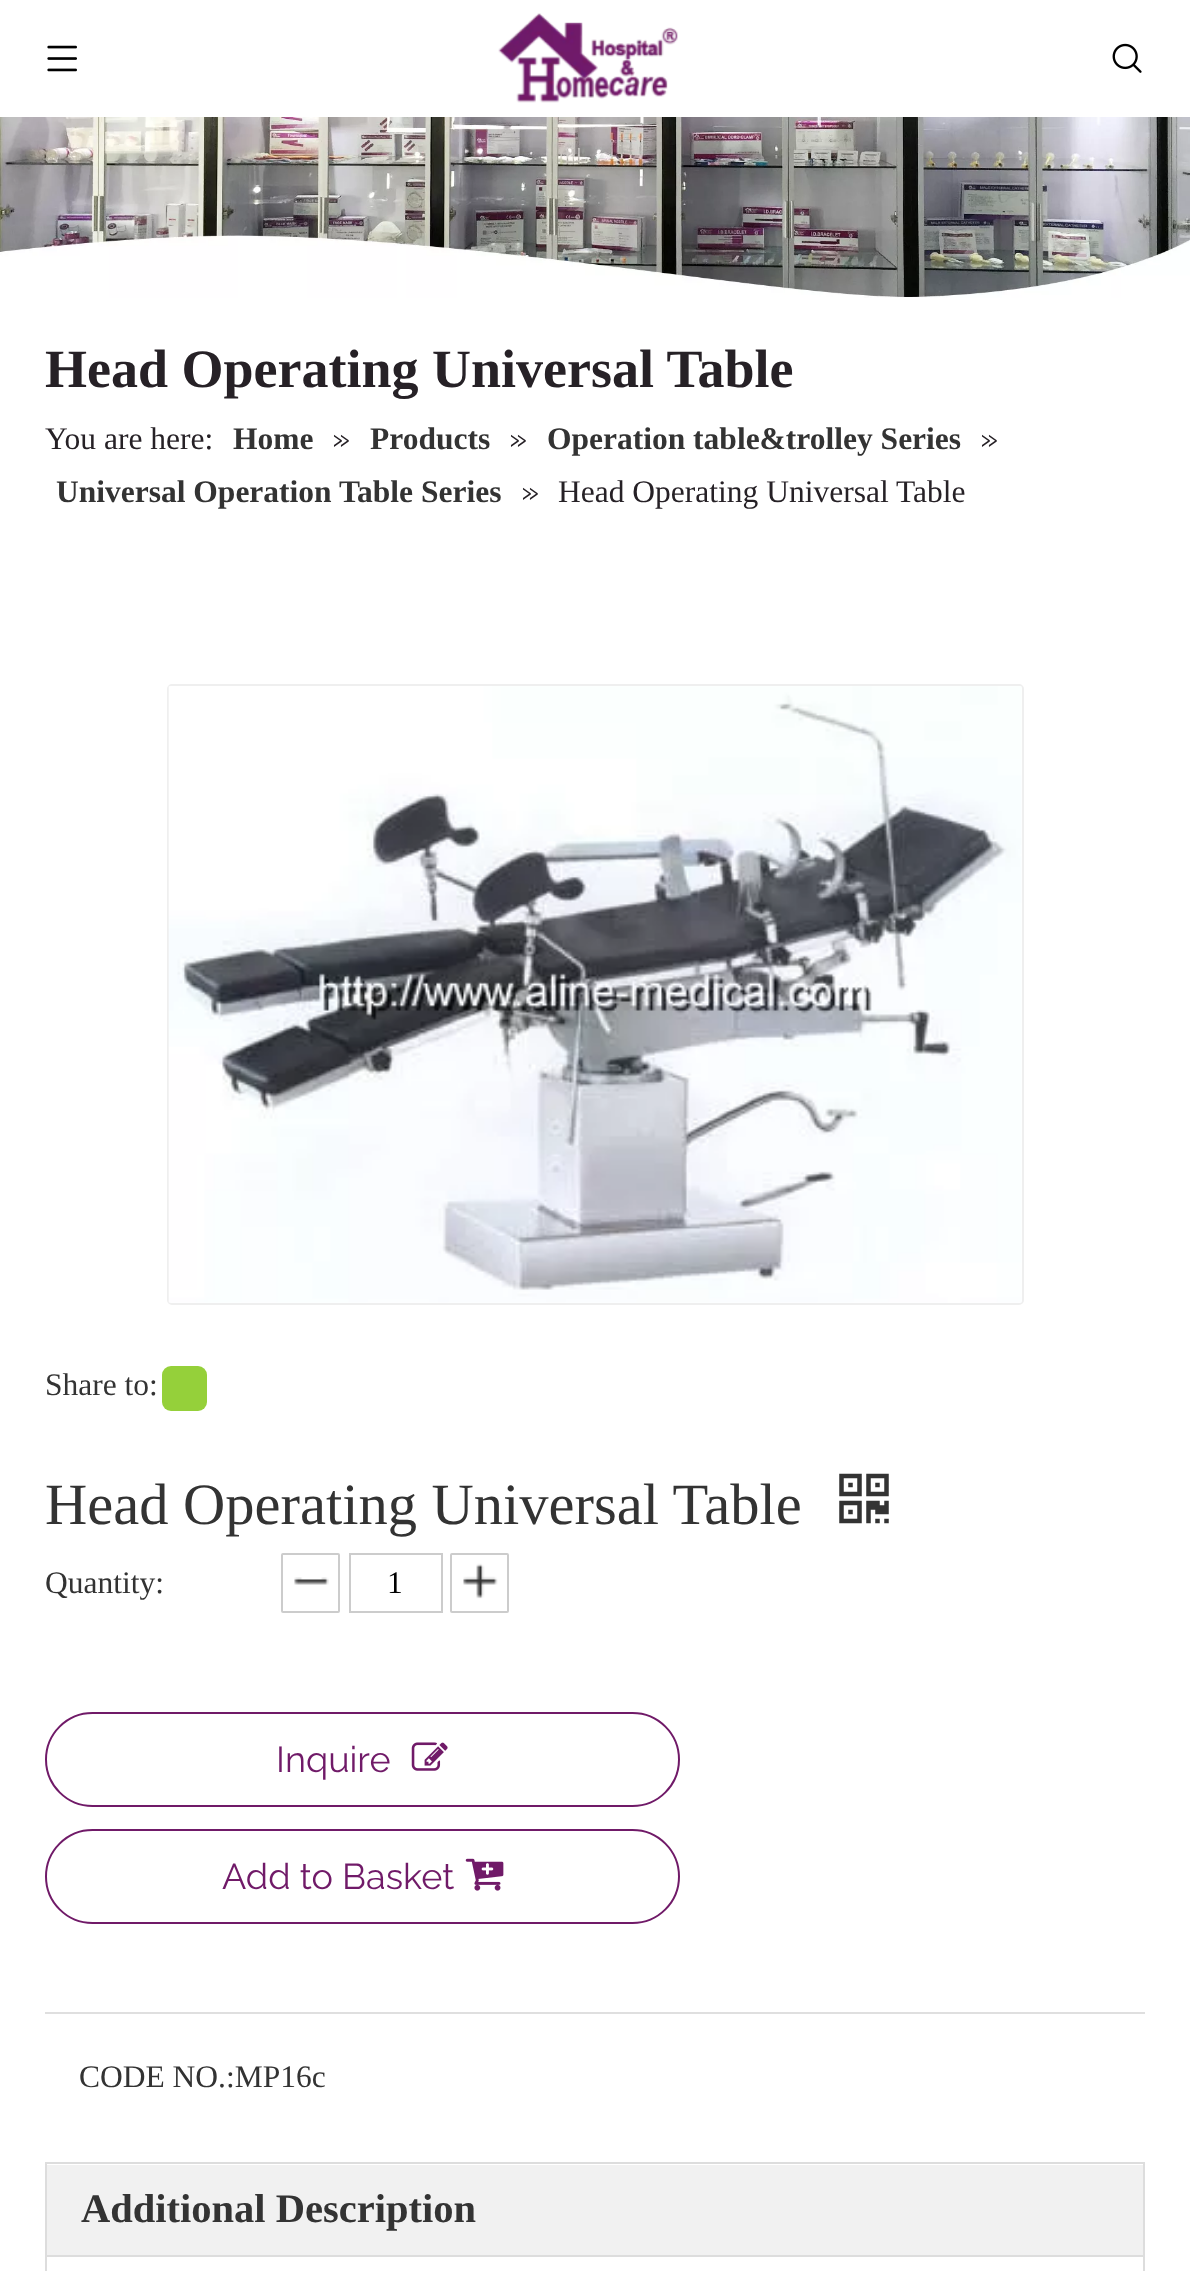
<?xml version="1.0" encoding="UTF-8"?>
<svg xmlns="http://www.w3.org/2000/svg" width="1190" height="2271">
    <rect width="100%" height="100%" fill="#FFFFFF"/>
    <image x="47" y="45" width="30" height="27" href="img_01.png"/>
    <image x="498" y="13" width="180" height="90" href="img_02.png"/>
    <image x="1112" y="43" width="30" height="30" href="img_03.png"/>
    <image x="0" y="117" width="1190" height="181" href="img_04.png"/>
    <text x="45" y="387" font-family="Liberation Serif" font-size="54" font-weight="700" fill="#262126">Head Operating Universal Table</text>
    <text x="45" y="449" font-family="Liberation Serif" font-size="31.5" fill="#262126">You are here:</text>
    <text x="233" y="449" font-family="Liberation Serif" font-size="31.5" font-weight="700" fill="#333333">Home</text>
    <text x="332" y="449" font-family="Raleway" font-size="31.5" font-weight="100" fill="#262126">»</text>
    <text x="370" y="449" font-family="Liberation Serif" font-size="31.5" font-weight="700" fill="#333333">Products</text>
    <text x="509" y="449" font-family="Raleway" font-size="31.5" font-weight="100" fill="#262126">»</text>
    <text x="547" y="449" font-family="Liberation Serif" font-size="31.5" font-weight="700" fill="#333333">Operation table&amp;trolley Series</text>
    <text x="980" y="449" font-family="Raleway" font-size="31.5" font-weight="100" fill="#262126">»</text>
    <text x="56" y="502" font-family="Liberation Serif" font-size="31.5" font-weight="700" fill="#333333">Universal Operation Table Series</text>
    <text x="521" y="502" font-family="Raleway" font-size="31.5" font-weight="100" fill="#262126">»</text>
    <text x="558" y="502" font-family="Liberation Serif" font-size="31.5" fill="#262126">Head Operating Universal Table</text>
    <rect x="168" y="685" width="855" height="619" rx="4" fill="none" stroke="#EFEFEF" stroke-width="2"/>
    <image x="168" y="686" width="854" height="617" href="img_05.png"/>
    <text x="45" y="1395" font-family="Liberation Serif" font-size="31.5" fill="#333333">Share to:</text>
    <rect x="162" y="1366" width="45" height="45" rx="9" fill="#95D03A"/>
    <text x="45" y="1524" font-family="Liberation Serif" font-size="58.5" fill="#333333">Head Operating Universal Table</text>
    <image x="839" y="1473" width="50" height="51" href="img_06.png"/>
    <text x="45" y="1593" font-family="Liberation Serif" font-size="31.5" fill="#333333">Quantity:</text>
    <image x="294" y="1577" width="35" height="8" href="img_07.png"/>
    <rect x="282" y="1554" width="57" height="58" rx="1" fill="none" stroke="#CCCCCC" stroke-width="2"/>
    <rect x="350" y="1554" width="92" height="58" fill="none" stroke="#CCCCCC" stroke-width="2"/>
    <text x="387" y="1593" font-family="Liberation Serif" font-size="31.5" fill="#000000">1</text>
    <image x="463" y="1563" width="35" height="36" href="img_08.png"/>
    <rect x="451" y="1554" width="57" height="58" rx="1" fill="none" stroke="#CCCCCC" stroke-width="2"/>
    <rect x="46" y="1713" width="633" height="93" rx="46.5" fill="none" stroke="#701A68" stroke-width="2"/>
    <text x="276" y="1772" font-family="Raleway" font-size="36" font-weight="100" fill="#701A68">Inquire</text>
    <image x="411" y="1742" width="37" height="29" href="img_09.png"/>
    <rect x="46" y="1830" width="633" height="93" rx="46.5" fill="none" stroke="#701A68" stroke-width="2"/>
    <text x="222" y="1889" font-family="Raleway" font-size="36" font-weight="100" fill="#701A68">Add to Basket</text>
    <image x="465" y="1858" width="39" height="33" href="img_10.png"/>
    <rect x="45" y="2012" width="1100" height="2" fill="#DFDFDF"/>
    <text x="79" y="2087" font-family="Liberation Serif" font-size="31.5" fill="#333333">CODE NO.:MP16c</text>
    <rect x="46" y="2163" width="1098" height="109" fill="none" stroke="#DDDDDD" stroke-width="2"/>
    <rect x="47" y="2165" width="1096" height="90" fill="#F1F1F1"/>
    <rect x="47" y="2255" width="1096" height="2" fill="#DDDDDD"/>
    <text x="81" y="2222" font-family="Liberation Serif" font-size="40.5" font-weight="700" fill="#333333">Additional Description</text>
</svg>
